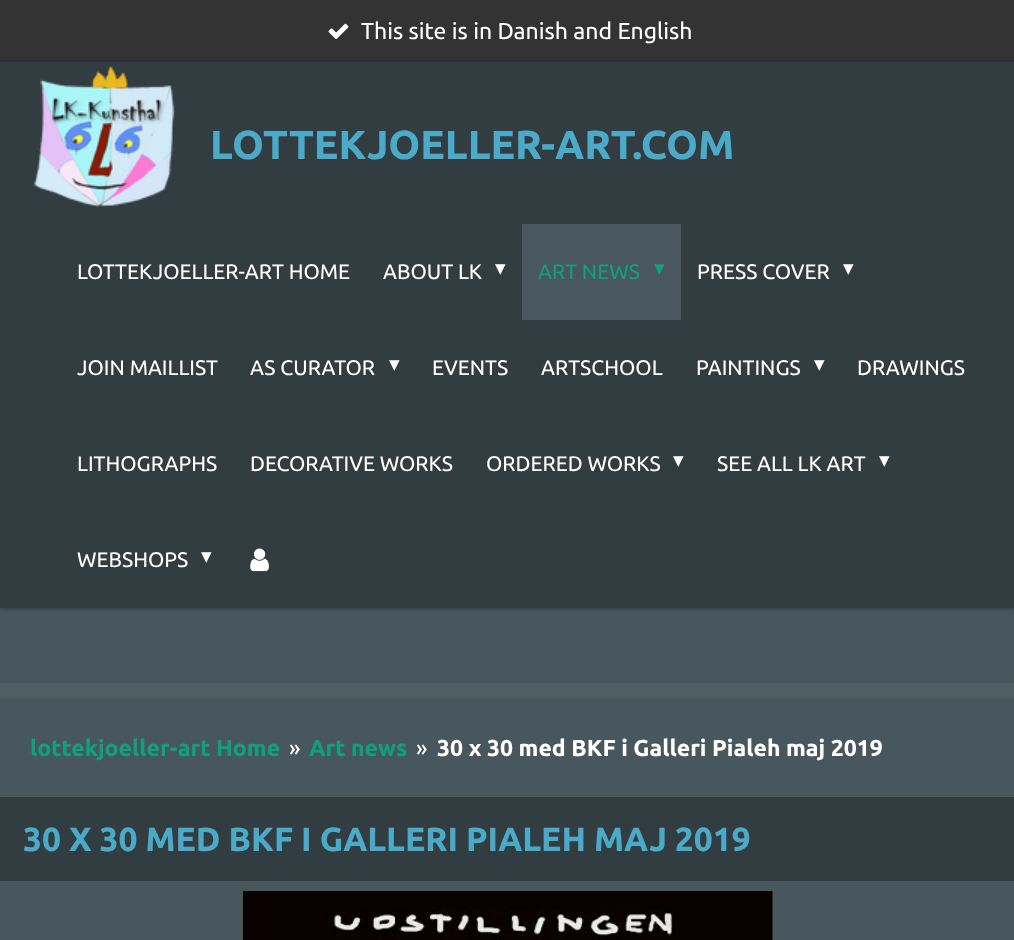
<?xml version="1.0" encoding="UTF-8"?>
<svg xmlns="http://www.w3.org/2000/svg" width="1014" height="940">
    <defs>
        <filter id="blur1" x="-50%" y="-200%" width="200%" height="500%"><feGaussianBlur stdDeviation="2"/></filter>
    </defs>
    <rect width="100%" height="100%" fill="#47575D"/>
    <rect x="0" y="0" width="1014" height="62" fill="#333333"/>
    <image x="328" y="23" width="21" height="16" href="img_01.png"/>
    <text x="361" y="39" font-family="Ubuntu" font-size="23" fill="#FFFFFF">This site is in Danish and English</text>
    <rect x="0" y="63" width="1014" height="546" fill="#000000" fill-opacity="0.3" filter="url(#blur1)"/>
    <rect x="0" y="62" width="1014" height="546" fill="#323D42"/>
    <image x="33" y="66" width="143" height="142" href="img_02.png"/>
    <text x="210" y="159" font-family="Ubuntu" font-size="40.5" font-weight="700" fill="#4CAAC9">LOTTEKJOELLER-ART.COM</text>
    <text x="77" y="279" font-family="Ubuntu" font-size="21" fill="#FFFFFF">LOTTEKJOELLER-ART HOME</text>
    <text x="383" y="279" font-family="Ubuntu" font-size="21" fill="#FFFFFF">ABOUT LK</text>
    <text x="495" y="275" font-family="DejaVu Sans" font-size="21" fill="#FFFFFF">▾</text>
    <rect x="522" y="224" width="159" height="96" fill="#48585E"/>
    <text x="538" y="279" font-family="Ubuntu" font-size="21" fill="#11A07E">ART NEWS</text>
    <text x="654" y="275" font-family="DejaVu Sans" font-size="21" fill="#11A07E">▾</text>
    <text x="697" y="279" font-family="Ubuntu" font-size="21" fill="#FFFFFF">PRESS COVER</text>
    <text x="843" y="275" font-family="DejaVu Sans" font-size="21" fill="#FFFFFF">▾</text>
    <text x="77" y="375" font-family="Ubuntu" font-size="21" fill="#FFFFFF">JOIN MAILLIST</text>
    <text x="250" y="375" font-family="Ubuntu" font-size="21" fill="#FFFFFF">AS CURATOR</text>
    <text x="389" y="371" font-family="DejaVu Sans" font-size="21" fill="#FFFFFF">▾</text>
    <text x="432" y="375" font-family="Ubuntu" font-size="21" fill="#FFFFFF">EVENTS</text>
    <text x="541" y="375" font-family="Ubuntu" font-size="21" fill="#FFFFFF">ARTSCHOOL</text>
    <text x="696" y="375" font-family="Ubuntu" font-size="21" fill="#FFFFFF">PAINTINGS</text>
    <text x="814" y="371" font-family="DejaVu Sans" font-size="21" fill="#FFFFFF">▾</text>
    <text x="857" y="375" font-family="Ubuntu" font-size="21" fill="#FFFFFF">DRAWINGS</text>
    <text x="77" y="471" font-family="Ubuntu" font-size="21" fill="#FFFFFF">LITHOGRAPHS</text>
    <text x="250" y="471" font-family="Ubuntu" font-size="21" fill="#FFFFFF">DECORATIVE WORKS</text>
    <text x="486" y="471" font-family="Ubuntu" font-size="21" fill="#FFFFFF">ORDERED WORKS</text>
    <text x="673" y="467" font-family="DejaVu Sans" font-size="21" fill="#FFFFFF">▾</text>
    <text x="717" y="471" font-family="Ubuntu" font-size="21" fill="#FFFFFF">SEE ALL LK ART</text>
    <text x="879" y="467" font-family="DejaVu Sans" font-size="21" fill="#FFFFFF">▾</text>
    <text x="77" y="567" font-family="Ubuntu" font-size="21" fill="#FFFFFF">WEBSHOPS</text>
    <text x="201" y="563" font-family="DejaVu Sans" font-size="21" fill="#FFFFFF">▾</text>
    <image x="250" y="548" width="19" height="24" href="img_03.png"/>
    <rect x="0" y="683" width="1014" height="15" fill="#4E5E63"/>
    <text x="30" y="756" font-family="Ubuntu" font-size="23" font-weight="700" fill="#11A07E">lottekjoeller-art Home</text>
    <text x="289" y="756" font-family="Ubuntu" font-size="23" fill="#FFFFFF">»</text>
    <text x="309" y="756" font-family="Ubuntu" font-size="23" font-weight="700" fill="#11A07E">Art news</text>
    <text x="416" y="756" font-family="Ubuntu" font-size="23" fill="#FFFFFF">»</text>
    <text x="437" y="756" font-family="Ubuntu" font-size="23" font-weight="700" fill="#FFFFFF">30 x 30 med BKF i Galleri Pialeh maj 2019</text>
    <rect x="0" y="797" width="1014" height="84" fill="#323D42"/>
    <text x="23" y="851" font-family="Ubuntu" font-size="33.45" font-weight="700" fill="#4CAAC9">30 X 30 MED BKF I GALLERI PIALEH MAJ 2019</text>
    <image x="243" y="891" width="530" height="49" href="img_04.png"/>
</svg>
